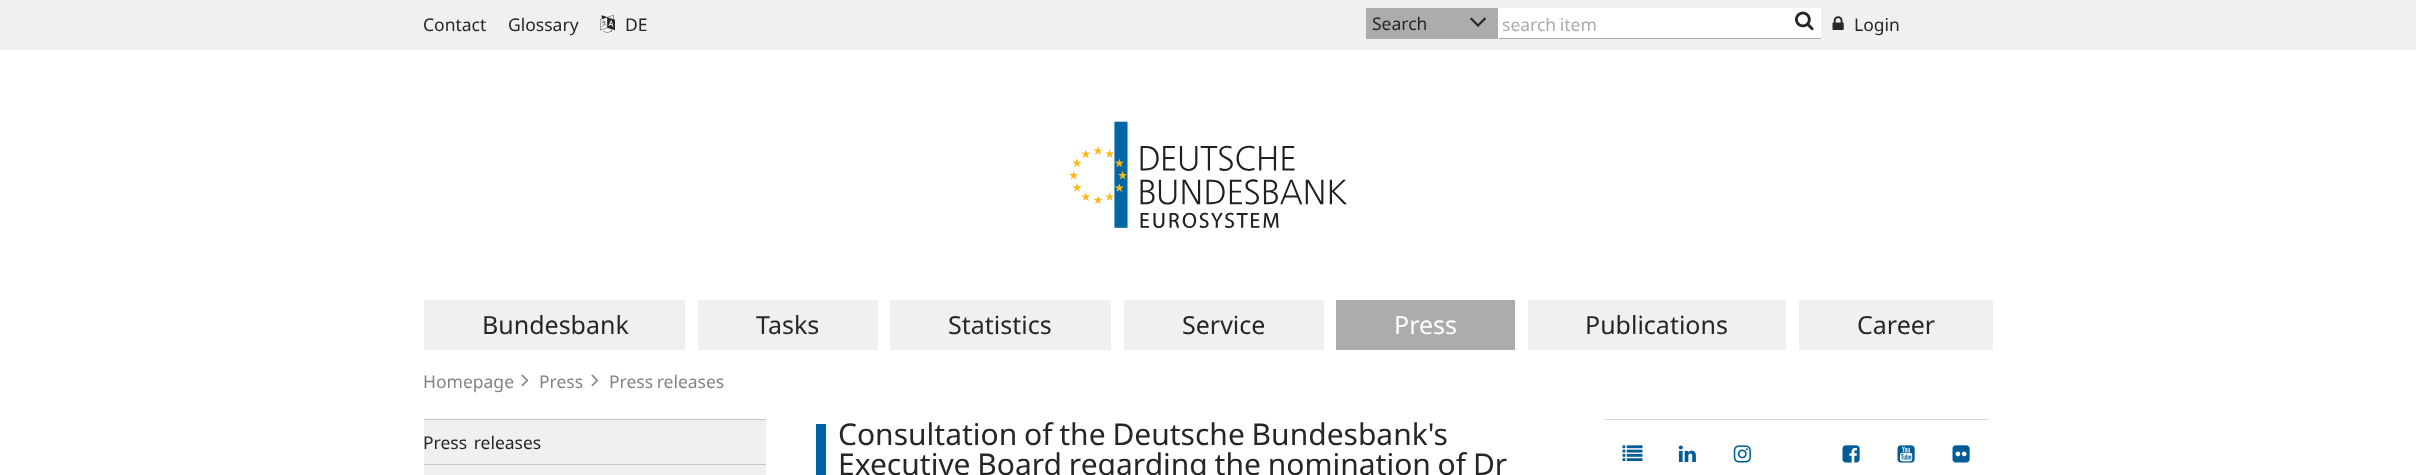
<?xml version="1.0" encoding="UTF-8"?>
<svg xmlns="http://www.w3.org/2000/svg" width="2416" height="475">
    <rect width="100%" height="100%" fill="#FFFFFF"/>
    <rect x="0" y="0" width="2416" height="50" fill="#F0F0F0"/>
    <text x="423" y="31" font-family="Noto Sans" font-size="17.5" fill="#262626">Contact</text>
    <text x="508" y="31" font-family="Noto Sans" font-size="17.5" fill="#262626">Glossary</text>
    <image x="600" y="15" width="15" height="18" href="img_01.png"/>
    <text x="625" y="31" font-family="Noto Sans" font-size="17.5" fill="#262626">DE</text>
    <rect x="1366" y="8" width="132" height="31" fill="#ABADAD"/>
    <text x="1372" y="30" font-family="Noto Sans" font-size="17.5" fill="#262626">Search</text>
    <image x="1470" y="17" width="16" height="10" href="img_02.png"/>
    <rect x="1499" y="9" width="321" height="29" fill="#FFFFFF"/>
    <rect x="1498" y="8" width="323" height="1" fill="#FFFFFF"/>
    <rect x="1820" y="8" width="1" height="31" fill="#FFFFFF"/>
    <rect x="1498" y="38" width="323" height="1" fill="#ABADAD"/>
    <rect x="1498" y="8" width="1" height="31" fill="#FFFFFF"/>
    <text x="1502" y="31" word-spacing="-1" font-family="Noto Sans" font-size="17.5" fill="#ABADAD">search item</text>
    <image x="1795" y="11" width="19" height="20" href="img_03.png"/>
    <image x="1832" y="16" width="12" height="14" href="img_04.png"/>
    <text x="1854" y="31" font-family="Noto Sans" font-size="17.5" fill="#262626">Login</text>
    <image x="1069" y="121" width="278" height="107" href="img_05.png"/>
    <rect x="424" y="300" width="261" height="50" fill="#F0F0F0"/>
    <text x="482" y="334" font-family="Noto Sans" font-size="25" fill="#262626">Bundesbank</text>
    <rect x="698" y="300" width="180" height="50" fill="#F0F0F0"/>
    <text x="756" y="334" font-family="Noto Sans" font-size="25" fill="#262626">Tasks</text>
    <rect x="890" y="300" width="221" height="50" fill="#F0F0F0"/>
    <text x="948" y="334" font-family="Noto Sans" font-size="25" fill="#262626">Statistics</text>
    <rect x="1124" y="300" width="200" height="50" fill="#F0F0F0"/>
    <text x="1182" y="334" font-family="Noto Sans" font-size="25" fill="#262626">Service</text>
    <rect x="1336" y="300" width="179" height="50" fill="#ABADAD"/>
    <text x="1394" y="334" font-family="Noto Sans" font-size="25" fill="#FFFFFF">Press</text>
    <rect x="1528" y="300" width="258" height="50" fill="#F0F0F0"/>
    <text x="1585" y="334" font-family="Noto Sans" font-size="25" fill="#262626">Publications</text>
    <rect x="1799" y="300" width="194" height="50" fill="#F0F0F0"/>
    <text x="1857" y="334" font-family="Noto Sans" font-size="25" fill="#262626">Career</text>
    <text x="423" y="388" font-family="Noto Sans" font-size="17.5" fill="#838383">Homepage</text>
    <image x="521" y="374" width="8" height="13" href="img_06.png"/>
    <text x="539" y="388" font-family="Noto Sans" font-size="17.5" fill="#838383">Press</text>
    <image x="591" y="374" width="8" height="13" href="img_06.png"/>
    <text x="609" y="388" word-spacing="-1" font-family="Noto Sans" font-size="17.5" fill="#838383">Press releases</text>
    <rect x="424" y="420" width="342" height="55" fill="#F0F0F0"/>
    <rect x="424" y="419" width="342" height="1" fill="#C5C5C5"/>
    <text x="423" y="449" word-spacing="2" font-family="Noto Sans" font-size="17.5" fill="#262626">Press releases</text>
    <rect x="424" y="464" width="342" height="1" fill="#C5C5C5"/>
    <rect x="816" y="424" width="10" height="51" fill="#0062A1"/>
    <text font-family="Noto Sans" font-size="30" fill="#262626">
        <tspan x="838" y="445" word-spacing="-1">Consultation of the Deutsche Bundesbank's</tspan>
        <tspan x="838" y="475" word-spacing="-1">Executive Board regarding the nomination of Dr</tspan>
    </text>
    <rect x="1605" y="419" width="383" height="1" fill="#DBDBDB"/>
    <image x="1622" y="445" width="21" height="17" href="img_07.png"/>
    <image x="1678" y="445" width="18" height="17" href="img_08.png"/>
    <image x="1733" y="445" width="18" height="18" href="img_09.png"/>
    <image x="1842" y="445" width="18" height="18" href="img_10.png"/>
    <image x="1897" y="445" width="18" height="18" href="img_11.png"/>
    <image x="1952" y="445" width="18" height="18" href="img_12.png"/>
</svg>
